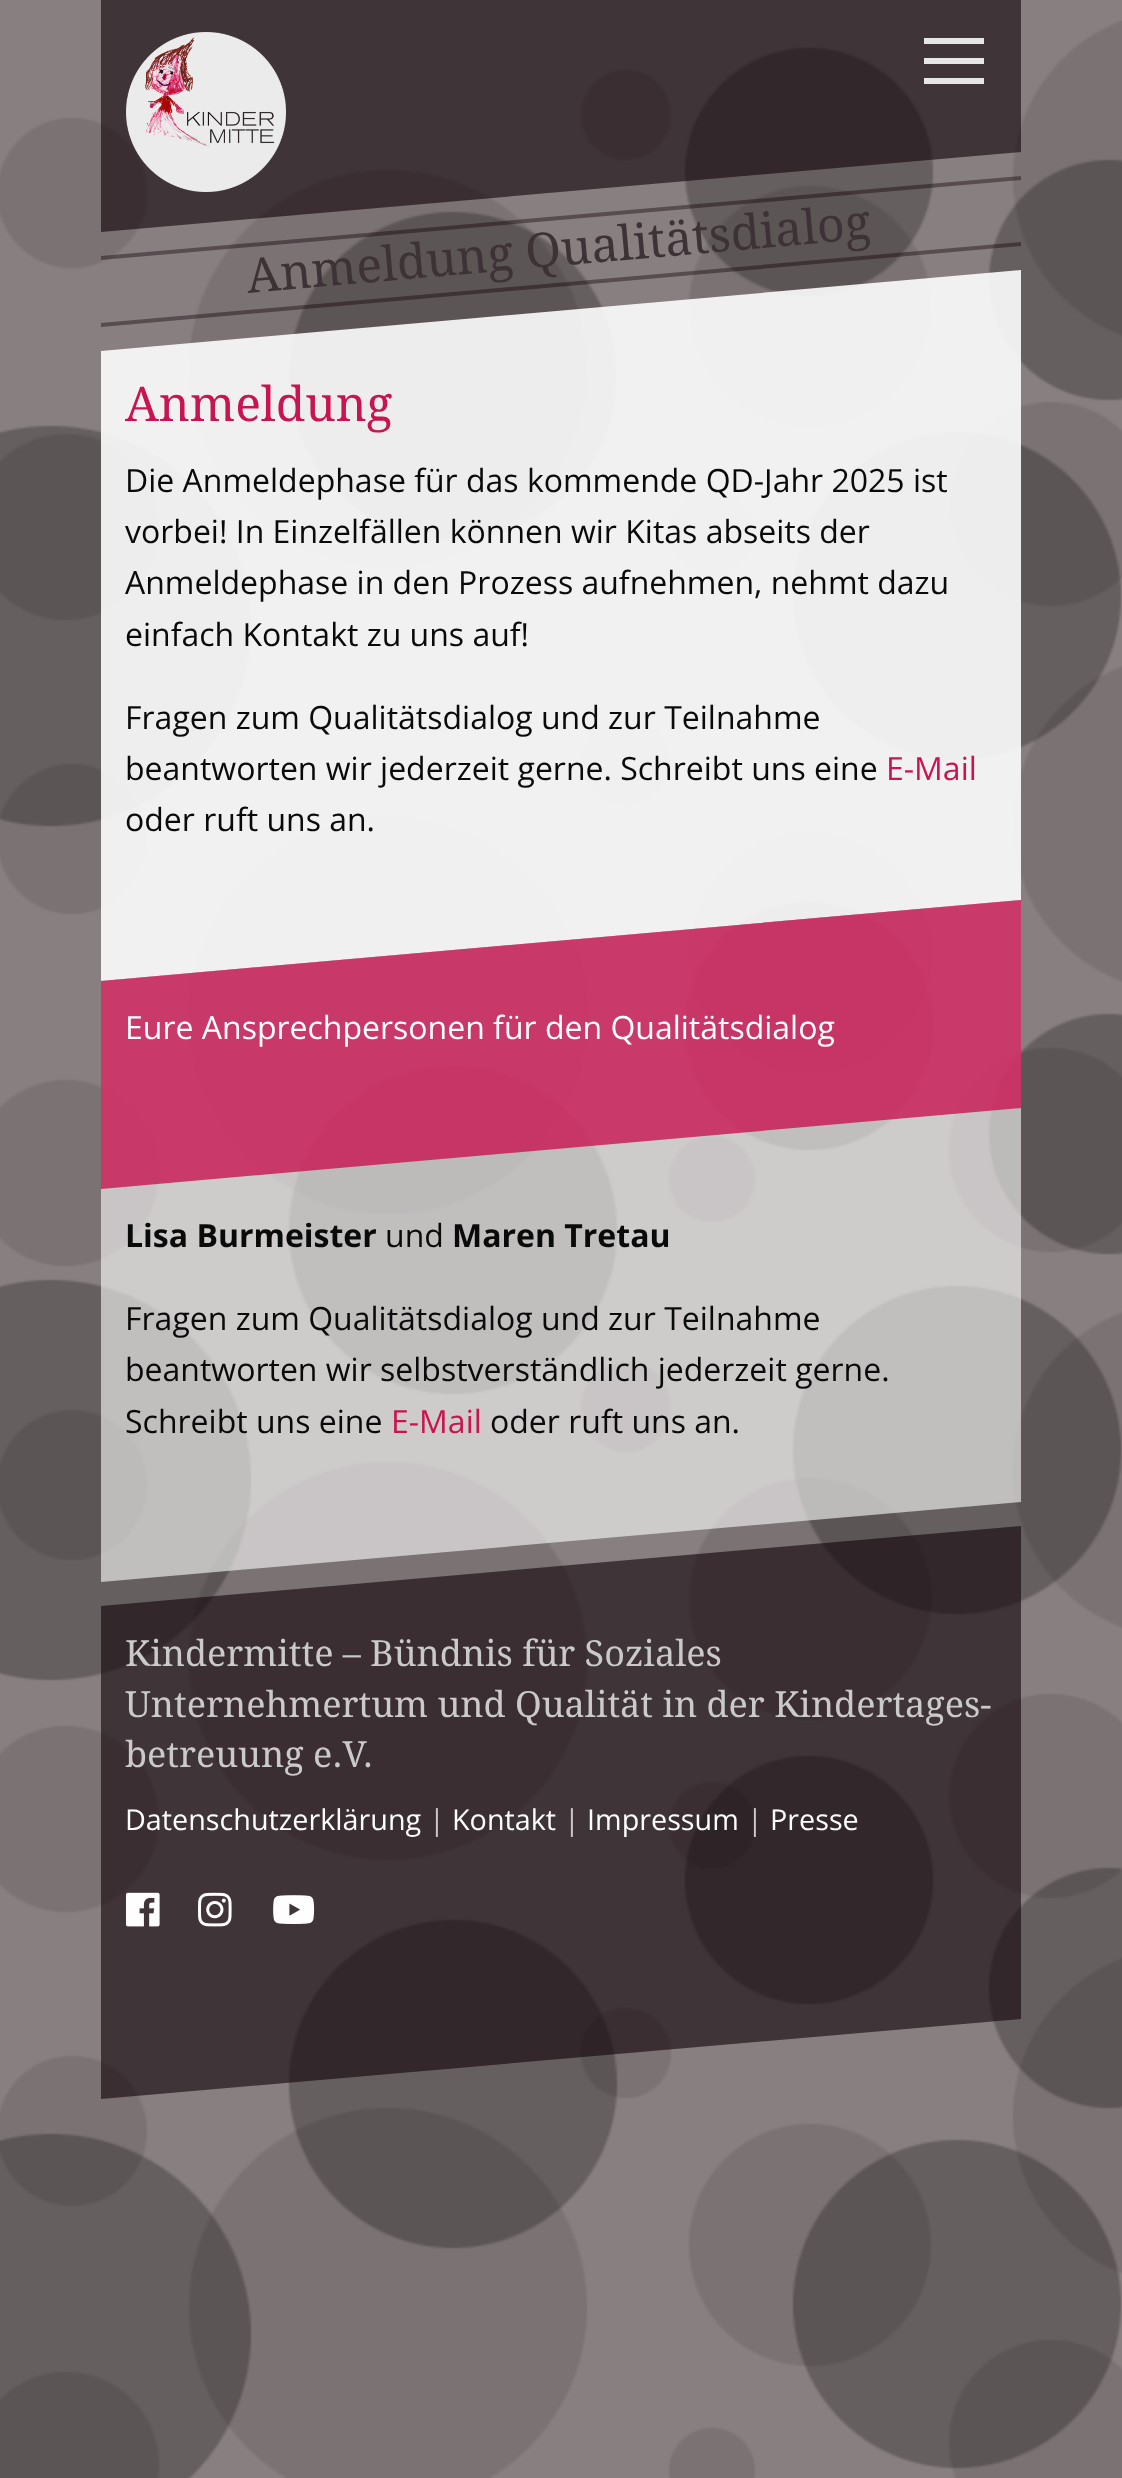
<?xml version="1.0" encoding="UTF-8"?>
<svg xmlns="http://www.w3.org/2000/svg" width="1122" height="2478">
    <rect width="100%" height="100%" fill="#887F80"/>
    <image x="0" y="20" width="1122" height="2458" href="img_01.png"/>
    <image x="0" y="47" width="1122" height="2431" href="img_02.png"/>
    <path d="M 101 256 L 1021 176 V 180 L 101 260 Z" fill="#0F0106" fill-opacity="0.4"/>
    <path d="M 101 323 L 1021 242 V 246 L 101 327 Z" fill="#0F0106" fill-opacity="0.4"/>
    <text x="248" y="293" transform="rotate(-5 248 293)" font-family="Droid Serif" font-size="48" fill="#3D3235">Anmeldung Qualitätsdialog</text>
    <path d="M 101 -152 L 1021 -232 V 152 L 101 232 Z" fill="#0F0106" fill-opacity="0.6"/>
    <image x="126" y="32" width="160" height="160" href="img_03.png"/>
    <rect x="924" y="78" width="60" height="6" fill="#E6E6E6"/>
    <rect x="924" y="58" width="60" height="6" fill="#E6E6E6"/>
    <rect x="924" y="38" width="60" height="6" fill="#E6E6E6"/>
    <path d="M 101 351 L 1021 270 V 900 L 101 981 Z" fill="#FEFEFE" fill-opacity="0.9"/>
    <text x="125" y="421" font-family="Droid Serif" font-size="48" fill="#C81450">Anmeldung</text>
    <text font-family="Open Sans" font-size="32" fill="#0A0A0A">
        <tspan x="125" y="492">Die Anmeldephase für das kommende QD-Jahr 2025 ist</tspan>
        <tspan x="125" y="543">vorbei! In Einzelfällen können wir Kitas abseits der</tspan>
        <tspan x="125" y="594">Anmeldephase in den Prozess aufnehmen, nehmt dazu</tspan>
        <tspan x="125" y="646">einfach Kontakt zu uns auf!</tspan>
    </text>
    <text font-family="Open Sans" font-size="32" fill="#0A0A0A">
        <tspan x="125" y="729">Fragen zum Qualitätsdialog und zur Teilnahme</tspan>
        <tspan x="125" y="780">beantworten wir jederzeit gerne. Schreibt uns eine</tspan>
    </text>
    <text x="886" y="780" font-family="Open Sans" font-size="32" fill="#C81450">E-Mail</text>
    <text x="125" y="831" font-family="Open Sans" font-size="32" fill="#0A0A0A">oder ruft uns an.</text>
    <path d="M 101 981 L 1021 900 V 1502 L 101 1582 Z" fill="#FEFEFE" fill-opacity="0.6"/>
    <path d="M 101 981 L 1021 900 V 1108 L 101 1189 Z" fill="#C81450" fill-opacity="0.8"/>
    <text x="125" y="1039" font-family="Open Sans" font-size="32" fill="#FEFEFE">Eure Ansprechpersonen für den Qualitätsdialog</text>
    <text x="125" y="1247" font-family="Open Sans" font-size="32" font-weight="700" fill="#0A0A0A">Lisa Burmeister</text>
    <text x="385" y="1247" font-family="Open Sans" font-size="32" fill="#0A0A0A">und</text>
    <text x="452" y="1247" font-family="Open Sans" font-size="32" font-weight="700" fill="#0A0A0A">Maren Tretau</text>
    <text font-family="Open Sans" font-size="32" fill="#0A0A0A">
        <tspan x="125" y="1330">Fragen zum Qualitätsdialog und zur Teilnahme</tspan>
        <tspan x="125" y="1381">beantworten wir selbstverständlich jederzeit gerne.</tspan>
        <tspan x="125" y="1433">Schreibt uns eine</tspan>
    </text>
    <text x="391" y="1433" font-family="Open Sans" font-size="32" fill="#C81450">E-Mail</text>
    <text x="490" y="1433" font-family="Open Sans" font-size="32" fill="#0A0A0A">oder ruft uns an.</text>
    <path d="M 101 1606 L 1021 1526 V 2019 L 101 2099 Z" fill="#0F0106" fill-opacity="0.6"/>
    <text font-family="Droid Serif" font-size="36" fill="#CACACA">
        <tspan x="125" y="1666">Kindermitte – Bündnis für Soziales</tspan>
        <tspan x="125" y="1717">Unternehmertum und Qualität in der Kindertages-</tspan>
        <tspan x="125" y="1767">betreuung e.V.</tspan>
    </text>
    <text x="125" y="1830" font-family="Open Sans" font-size="28.75" fill="#FEFEFE">Datenschutzerklärung</text>
    <text x="429" y="1830" font-family="Open Sans" font-size="28.75" fill="#CACACA">|</text>
    <text x="452" y="1830" font-family="Open Sans" font-size="28.75" fill="#FEFEFE">Kontakt</text>
    <text x="564" y="1830" font-family="Open Sans" font-size="28.75" fill="#CACACA">|</text>
    <text x="587" y="1830" font-family="Open Sans" font-size="28.75" fill="#FEFEFE">Impressum</text>
    <text x="747" y="1830" font-family="Open Sans" font-size="28.75" fill="#CACACA">|</text>
    <text x="770" y="1830" font-family="Open Sans" font-size="28.75" fill="#FEFEFE">Presse</text>
    <image x="126" y="1892" width="34" height="35" href="img_04.png"/>
    <image x="198" y="1892" width="34" height="35" href="img_05.png"/>
    <image x="273" y="1895" width="42" height="29" href="img_06.png"/>
</svg>
